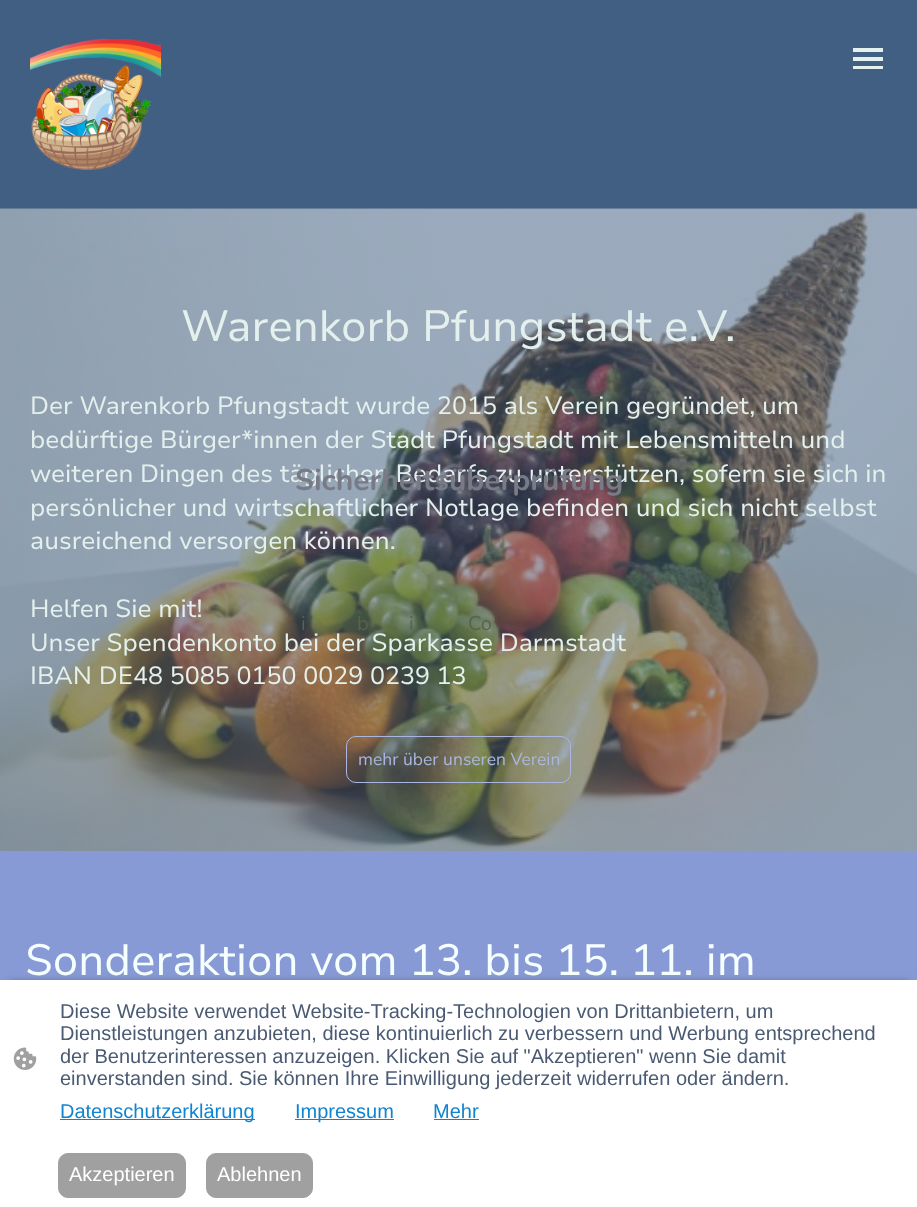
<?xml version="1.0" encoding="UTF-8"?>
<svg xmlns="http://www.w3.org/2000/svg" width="917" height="1207">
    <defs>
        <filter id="blur1" x="-50%" y="-200%" width="200%" height="500%"><feGaussianBlur stdDeviation="5"/></filter>
    </defs>
    <rect width="100%" height="100%" fill="#405F83"/>
    <image x="30" y="38" width="132" height="132" href="img_01.png"/>
    <rect x="853" y="48" width="30" height="4" fill="#E4F0ED"/>
    <rect x="853" y="57" width="30" height="4" fill="#E4F0ED"/>
    <rect x="853" y="66" width="30" height="3" fill="#E4F0ED"/>
    <image x="0" y="208" width="917" height="643" href="img_02.png"/>
    <text x="181" y="341" font-family="Nunito Sans" font-size="43.75" fill="#E4F0ED">Warenkorb Pfungstadt e.V.</text>
    <text font-family="Nunito Sans" font-size="25" fill="#E4F0ED">
        <tspan x="30" y="414">Der Warenkorb Pfungstadt wurde 2015 als Verein gegründet, um</tspan>
        <tspan x="30" y="448">bedürftige Bürger*innen der Stadt Pfungstadt mit Lebensmitteln und</tspan>
        <tspan x="30" y="482">weiteren Dingen des täglichen Bedarfs zu unterstützen, sofern sie sich in</tspan>
        <tspan x="30" y="516">persönlicher und wirtschaftlicher Notlage befinden und sich nicht selbst</tspan>
        <tspan x="30" y="549">ausreichend versorgen können.</tspan>
    </text>
    <text font-family="Nunito Sans" font-size="25" fill="#E4F0ED">
        <tspan x="30" y="617">Helfen Sie mit!</tspan>
        <tspan x="30" y="651">Unser Spendenkonto bei der Sparkasse Darmstadt</tspan>
        <tspan x="30" y="684">IBAN DE48 5085 0150 0029 0239 13</tspan>
    </text>
    <rect x="346.5" y="736.5" width="224" height="46" rx="9.5" fill="none" stroke="#AAB6E1"/>
    <text x="358" y="765" font-family="Nunito" font-size="17.5" fill="#AAB6E1">mehr über unseren Verein</text>
    <rect x="0" y="851" width="917" height="129" fill="#889AD5"/>
    <text x="25" y="975" font-family="Nunito Sans" font-size="43.75" fill="#F6FFFF">Sonderaktion vom 13. bis 15. 11. im</text>
    <text x="295" y="490" font-family="Nunito" font-size="30" font-weight="700" fill="#787B86">Sicherheitsüberprüfung</text>
    <text x="301" y="630" font-family="Nunito" font-size="20" fill="#5A614C">i</text>
    <text x="357" y="630" font-family="Nunito" font-size="20" fill="#5A614C">b</text>
    <text x="409" y="630" font-family="Nunito" font-size="20" fill="#5A614C">i</text>
    <text x="468" y="630" font-family="Nunito" font-size="20" fill="#5A614C">Co</text>
    <rect x="8" y="984" width="902" height="212" fill="#000000" fill-opacity="0.63" filter="url(#blur1)"/>
    <rect x="0" y="980" width="917" height="227" fill="#FFFFFF"/>
    <image x="13" y="1047" width="24" height="23" href="img_03.png"/>
    <text font-family="Liberation Sans" font-size="20" fill="#4A5A73">
        <tspan x="60" y="1018">Diese Website verwendet Website-Tracking-Technologien von Drittanbietern, um</tspan>
        <tspan x="60" y="1040">Dienstleistungen anzubieten, diese kontinuierlich zu verbessern und Werbung entsprechend</tspan>
        <tspan x="60" y="1063">der Benutzerinteressen anzuzeigen. Klicken Sie auf "Akzeptieren" wenn Sie damit</tspan>
        <tspan x="60" y="1085">einverstanden sind. Sie können Ihre Einwilligung jederzeit widerrufen oder ändern.</tspan>
    </text>
    <rect x="60" y="1119" width="195" height="1" fill="#1183D1"/>
    <text x="60" y="1118" font-family="Liberation Sans" font-size="20" fill="#1183D1">Datenschutzerklärung</text>
    <rect x="295" y="1119" width="99" height="1" fill="#1183D1"/>
    <text x="295" y="1118" font-family="Liberation Sans" font-size="20" fill="#1183D1">Impressum</text>
    <text x="433" y="1118" font-family="Liberation Sans" font-size="20" fill="#1183D1">Mehr</text>
    <rect x="434" y="1119" width="45" height="1" fill="#1183D1"/>
    <rect x="58.5" y="1153.5" width="127" height="44" rx="9.5" fill="#A0A0A0" stroke="#A0A0A0"/>
    <text x="69" y="1181" font-family="Liberation Sans" font-size="20" fill="#FFFFFF">Akzeptieren</text>
    <rect x="206.5" y="1153.5" width="106" height="44" rx="9.5" fill="#A0A0A0" stroke="#A0A0A0"/>
    <text x="217" y="1181" font-family="Liberation Sans" font-size="20" fill="#FFFFFF">Ablehnen</text>
</svg>
